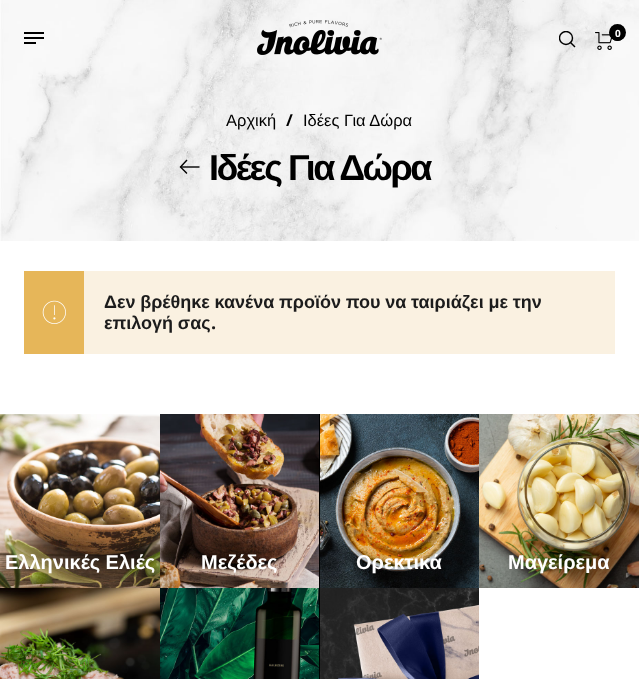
<?xml version="1.0" encoding="UTF-8"?>
<svg xmlns="http://www.w3.org/2000/svg" width="639" height="679">
    <defs>
        <clipPath id="clip1"><rect x="559" y="31" width="17" height="17"/></clipPath>
    </defs>
    <rect width="100%" height="100%" fill="#FFFFFF"/>
    <image x="0" y="0" width="639" height="241" href="img_03.png"/>
    <rect x="24" y="32" width="20" height="2" fill="#000000"/>
    <rect x="24" y="37" width="20" height="2" fill="#000000"/>
    <rect x="24" y="42" width="12" height="2" fill="#000000"/>
    <image x="257" y="20" width="125" height="35" href="img_01.png"/>
    <path d="M 574.5 46.5 L 570.5 42.5" fill="none" stroke="#000000" stroke-width="1.4" stroke-linecap="square"/>
    <g clip-path="url(#clip1)">
        <circle cx="566" cy="38" r="6.5" fill="none" stroke="#000000" stroke-width="1.4"/>
    </g>
    <image x="595" y="32" width="17" height="18" href="img_02.png"/>
    <circle cx="617.5" cy="32.5" r="8.5" fill="#000000"/>
    <circle cx="617.5" cy="33.5" r="7.5" fill="#000000"/>
    <text x="615" y="37" font-family="Open Sans" font-size="10" font-weight="700" fill="#FFFFFF">0</text>
    <text x="226" y="126" font-family="Liberation Sans" font-size="16.5" fill="#000000">Αρχική</text>
    <text x="286" y="126" font-family="Open Sans" font-size="16.5" font-weight="700" fill="#000000">/</text>
    <text x="303" y="126" font-family="Liberation Sans" font-size="16.5" fill="#000000">Ιδέες Για Δώρα</text>
    <path d="M 199.5 167 H 180.5" fill="none" stroke="#000000" stroke-width="1.4"/>
    <path d="M 186.5 173 L 180.5 167 L 186.5 160.5" fill="none" stroke="#000000" stroke-width="1.4" stroke-linecap="square"/>
    <text x="209" y="180" font-family="Liberation Sans" font-size="36" font-weight="700" letter-spacing="-2.5" fill="#000000">Ιδέες Για Δώρα</text>
    <rect x="84" y="271" width="531" height="83" fill="#FAF1E1"/>
    <rect x="24" y="271" width="60" height="83" fill="#E6B659"/>
    <image x="42" y="300" width="24" height="24" href="img_04.png"/>
    <text font-family="Liberation Sans" font-size="18" font-weight="700" fill="#1C1C1C">
        <tspan x="104" y="308" word-spacing="-0.25">Δεν βρέθηκε κανένα προϊόν που να ταιριάζει με την</tspan>
        <tspan x="104" y="329" word-spacing="-0.25">επιλογή σας</tspan>
    </text>
    <text x="211" y="329" font-family="Open Sans" font-size="18" font-weight="700" fill="#1C1C1C">.</text>
    <image x="0" y="414" width="160" height="174" href="img_05.png"/>
    <text x="5" y="569" font-family="Liberation Sans" font-size="20" font-weight="700" fill="#FFFFFF">Ελληνικές Ελιές</text>
    <rect x="319" y="414" width="1" height="265" fill="#000000"/>
    <image x="160" y="414" width="159" height="174" href="img_06.png"/>
    <text x="201" y="569" font-family="Liberation Sans" font-size="20" font-weight="700" fill="#FFFFFF">Μεζέδες</text>
    <image x="320" y="414" width="159" height="174" href="img_07.png"/>
    <text x="356" y="569" font-family="Liberation Sans" font-size="20" font-weight="700" fill="#FFFFFF">Ορεκτικά</text>
    <image x="479" y="414" width="160" height="174" href="img_08.png"/>
    <text x="508" y="569" font-family="Liberation Sans" font-size="20" font-weight="700" fill="#FFFFFF">Μαγείρεμα</text>
    <image x="0" y="588" width="160" height="91" href="img_09.png"/>
    <image x="160" y="588" width="159" height="91" href="img_10.png"/>
    <image x="320" y="588" width="159" height="91" href="img_11.png"/>
</svg>
